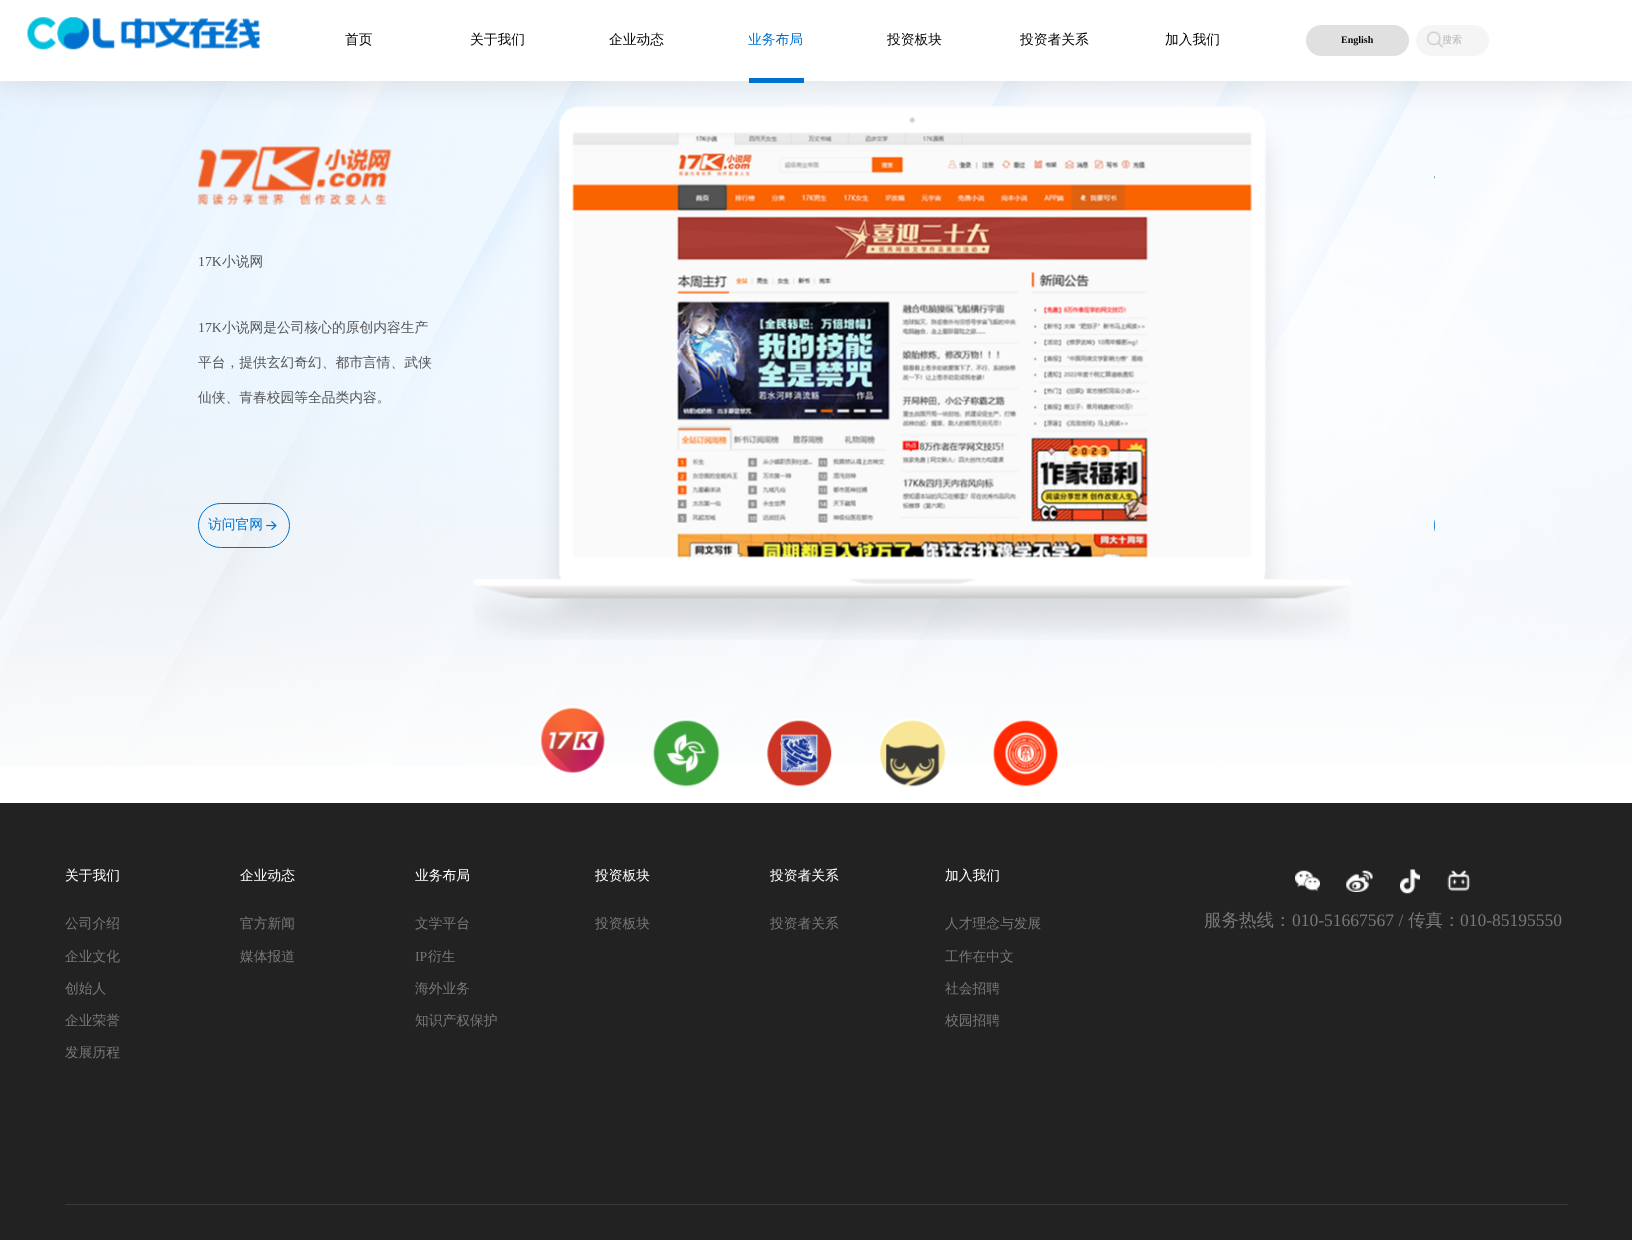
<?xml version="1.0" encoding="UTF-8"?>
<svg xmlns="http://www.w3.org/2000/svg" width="1632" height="1240">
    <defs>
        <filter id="blur1" x="-50%" y="-200%" width="200%" height="500%"><feGaussianBlur stdDeviation="17.5"/></filter>
        <clipPath id="clip1"><rect x="1443" y="34" width="33" height="14"/></clipPath>
        <clipPath id="clip2"><rect x="198" y="70" width="1237" height="734"/></clipPath>
    </defs>
    <rect width="100%" height="100%" fill="#FFFFFF"/>
    <image x="0" y="81" width="1632" height="685" href="img_03.png"/>
    <image x="473" y="106" width="878" height="534" href="img_06.png"/>
    <rect x="0" y="0" width="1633" height="81" fill="#ADADAD" fill-opacity="0.4" filter="url(#blur1)"/>
    <rect x="0" y="0" width="1632" height="81" fill="#FFFFFF"/>
    <image x="27" y="17" width="233" height="33" href="img_01.png"/>
    <text x="345" y="44" font-family="WenQuanYi Zen Hei" font-size="13.75" font-weight="500" fill="#000000">首页</text>
    <text x="470" y="44" font-family="WenQuanYi Zen Hei" font-size="13.75" font-weight="500" fill="#000000">关于我们</text>
    <text x="609" y="44" font-family="WenQuanYi Zen Hei" font-size="13.75" font-weight="500" fill="#000000">企业动态</text>
    <path d="M 749 78 V 83 H 804 V 8 V 78 Z" fill="#0071CE"/>
    <text x="748" y="44" font-family="WenQuanYi Zen Hei" font-size="13.75" font-weight="500" fill="#0071CE">业务布局</text>
    <text x="887" y="44" font-family="WenQuanYi Zen Hei" font-size="13.75" font-weight="500" fill="#000000">投资板块</text>
    <text x="1020" y="44" font-family="WenQuanYi Zen Hei" font-size="13.75" font-weight="500" fill="#000000">投资者关系</text>
    <text x="1165" y="44" font-family="WenQuanYi Zen Hei" font-size="13.75" font-weight="500" fill="#000000">加入我们</text>
    <rect x="1306" y="25" width="103" height="31" rx="15.5" fill="#E0E0E0"/>
    <text x="1341" y="43" font-family="Liberation Serif" font-size="10" font-weight="700" fill="#000000">English</text>
    <rect x="1416" y="25" width="73" height="31" rx="15.5" fill="#F5F5F5"/>
    <g clip-path="url(#clip1)">
        <text x="1442" y="43" font-family="WenQuanYi Zen Hei" font-size="10" font-weight="500" fill="#B3B3B3">搜索</text>
    </g>
    <image x="1427" y="31" width="17" height="17" href="img_02.png"/>
    <image x="198" y="146" width="194" height="59" href="img_04.png"/>
    <text x="198" y="266" font-family="Liberation Serif" font-size="13.75" fill="#555555">17K</text>
    <text x="222" y="266" font-family="WenQuanYi Zen Hei" font-size="13.75" font-weight="500" fill="#555555">小说网</text>
    <text x="198" y="332" font-family="Liberation Serif" font-size="13.75" fill="#555555">17K</text>
    <text x="222" y="332" font-family="WenQuanYi Zen Hei" font-size="13.75" font-weight="500" fill="#555555">小说网是公司核心的原创内容生产</text>
    <text x="198" y="367" font-family="WenQuanYi Zen Hei" font-size="13.75" font-weight="500" fill="#555555">平台，提供玄幻奇幻、都市言情、武侠</text>
    <text x="198" y="402" font-family="WenQuanYi Zen Hei" font-size="13.75" font-weight="500" fill="#555555">仙侠、青春校园等全品类内容。</text>
    <rect x="198.5" y="503.5" width="91" height="44" rx="22" fill="none" stroke="#0071CE"/>
    <text x="208" y="529" font-family="WenQuanYi Zen Hei" font-size="13.75" font-weight="500" fill="#0071CE">访问官网</text>
    <image x="266" y="521" width="11" height="9" href="img_05.png"/>
    <image x="1434" y="175" width="1" height="4" href="img_07.png"/>
    <g clip-path="url(#clip2)">
        <rect x="1434.5" y="503.5" width="91" height="44" rx="22" fill="none" stroke="#0071CE"/>
    </g>
    <image x="540" y="706" width="65" height="67" href="img_08.png"/>
    <image x="653" y="719" width="67" height="68" href="img_09.png"/>
    <image x="767" y="719" width="65" height="68" href="img_10.png"/>
    <image x="880" y="719" width="66" height="68" href="img_11.png"/>
    <image x="993" y="720" width="66" height="67" href="img_12.png"/>
    <rect x="0" y="803" width="1632" height="437" fill="#222222"/>
    <text x="65" y="880" font-family="WenQuanYi Zen Hei" font-size="13.75" font-weight="500" fill="#FFFFFF">关于我们</text>
    <text x="65" y="928" font-family="WenQuanYi Zen Hei" font-size="13.75" font-weight="500" fill="#787878">公司介绍</text>
    <text x="65" y="961" font-family="WenQuanYi Zen Hei" font-size="13.75" font-weight="500" fill="#787878">企业文化</text>
    <text x="65" y="993" font-family="WenQuanYi Zen Hei" font-size="13.75" font-weight="500" fill="#787878">创始人</text>
    <text x="65" y="1025" font-family="WenQuanYi Zen Hei" font-size="13.75" font-weight="500" fill="#787878">企业荣誉</text>
    <text x="65" y="1057" font-family="WenQuanYi Zen Hei" font-size="13.75" font-weight="500" fill="#787878">发展历程</text>
    <text x="240" y="880" font-family="WenQuanYi Zen Hei" font-size="13.75" font-weight="500" fill="#FFFFFF">企业动态</text>
    <text x="240" y="928" font-family="WenQuanYi Zen Hei" font-size="13.75" font-weight="500" fill="#787878">官方新闻</text>
    <text x="240" y="961" font-family="WenQuanYi Zen Hei" font-size="13.75" font-weight="500" fill="#787878">媒体报道</text>
    <text x="415" y="880" font-family="WenQuanYi Zen Hei" font-size="13.75" font-weight="500" fill="#FFFFFF">业务布局</text>
    <text x="415" y="928" font-family="WenQuanYi Zen Hei" font-size="13.75" font-weight="500" fill="#787878">文学平台</text>
    <text x="415" y="961" font-family="Liberation Serif" font-size="13.75" fill="#787878">IP</text>
    <text x="428" y="961" font-family="WenQuanYi Zen Hei" font-size="13.75" font-weight="500" fill="#787878">衍生</text>
    <text x="415" y="993" font-family="WenQuanYi Zen Hei" font-size="13.75" font-weight="500" fill="#787878">海外业务</text>
    <text x="415" y="1025" font-family="WenQuanYi Zen Hei" font-size="13.75" font-weight="500" fill="#787878">知识产权保护</text>
    <text x="595" y="880" font-family="WenQuanYi Zen Hei" font-size="13.75" font-weight="500" fill="#FFFFFF">投资板块</text>
    <text x="595" y="928" font-family="WenQuanYi Zen Hei" font-size="13.75" font-weight="500" fill="#787878">投资板块</text>
    <text x="770" y="880" font-family="WenQuanYi Zen Hei" font-size="13.75" font-weight="500" fill="#FFFFFF">投资者关系</text>
    <text x="770" y="928" font-family="WenQuanYi Zen Hei" font-size="13.75" font-weight="500" fill="#787878">投资者关系</text>
    <text x="945" y="880" font-family="WenQuanYi Zen Hei" font-size="13.75" font-weight="500" fill="#FFFFFF">加入我们</text>
    <text x="945" y="928" font-family="WenQuanYi Zen Hei" font-size="13.75" font-weight="500" fill="#787878">人才理念与发展</text>
    <text x="945" y="961" font-family="WenQuanYi Zen Hei" font-size="13.75" font-weight="500" fill="#787878">工作在中文</text>
    <text x="945" y="993" font-family="WenQuanYi Zen Hei" font-size="13.75" font-weight="500" fill="#787878">社会招聘</text>
    <text x="945" y="1025" font-family="WenQuanYi Zen Hei" font-size="13.75" font-weight="500" fill="#787878">校园招聘</text>
    <image x="1295" y="870" width="25" height="21" href="img_13.png"/>
    <image x="1346" y="870" width="27" height="22" href="img_14.png"/>
    <image x="1400" y="869" width="20" height="25" href="img_15.png"/>
    <image x="1447" y="870" width="24" height="21" href="img_16.png"/>
    <text x="1204" y="926" font-family="WenQuanYi Zen Hei" font-size="17.5" font-weight="500" fill="#787878">服务热线：</text>
    <text x="1292" y="926" font-family="Liberation Serif" font-size="17.5" fill="#787878">010-51667567 /</text>
    <text x="1408" y="926" font-family="WenQuanYi Zen Hei" font-size="17.5" font-weight="500" fill="#787878">传真：</text>
    <text x="1460" y="926" font-family="Liberation Serif" font-size="17.5" fill="#787878">010-85195550</text>
    <rect x="65" y="1204" width="1503" height="1" fill="#383838"/>
</svg>
